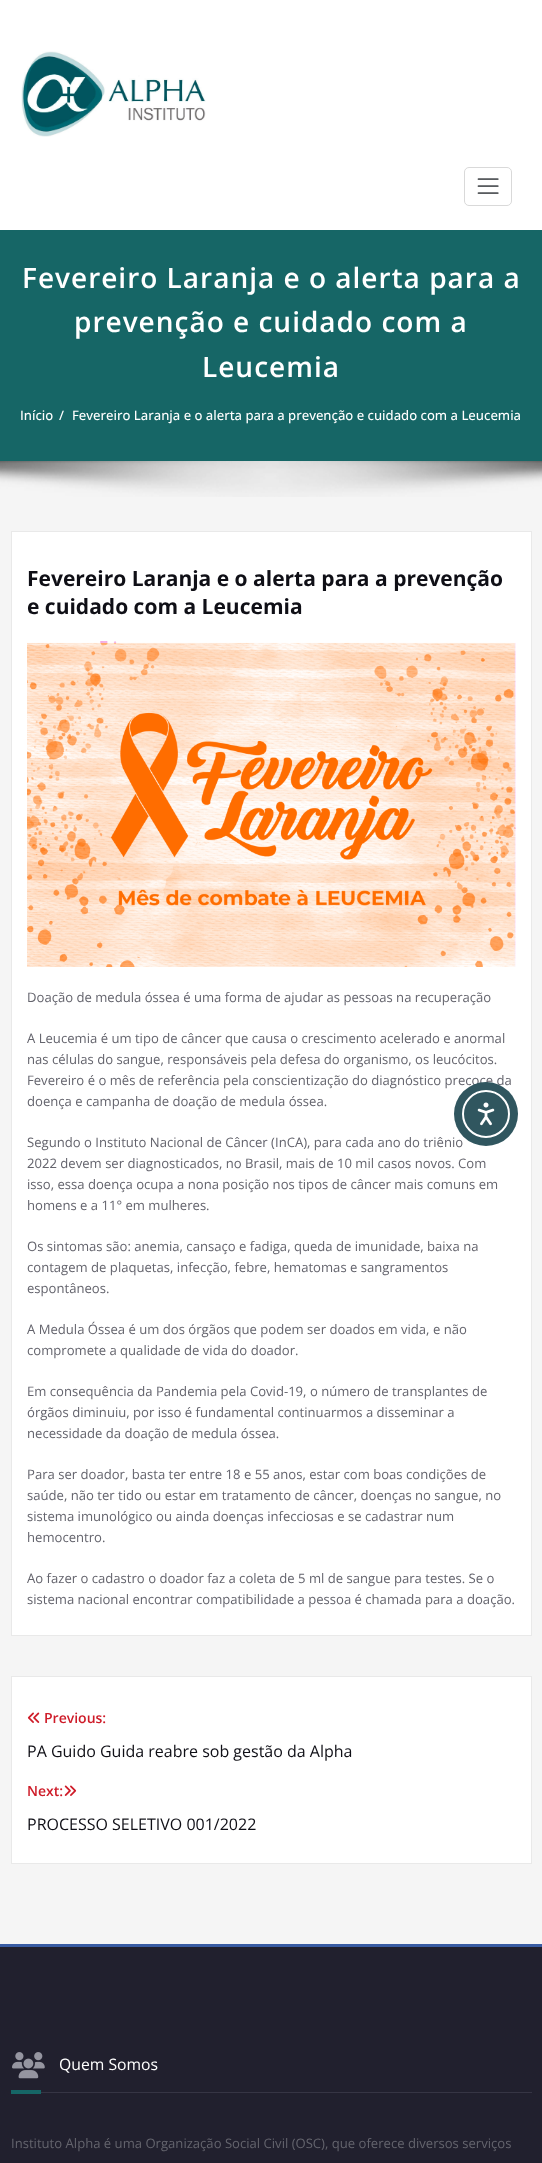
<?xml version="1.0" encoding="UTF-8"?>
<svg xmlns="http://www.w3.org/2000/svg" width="542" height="2163">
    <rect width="100%" height="100%" fill="#F5F5F5"/>
    <rect x="0" y="0" width="542" height="230" fill="#FFFFFF"/>
    <image x="21" y="51" width="185" height="86" href="img_01.png"/>
    <rect x="464.5" y="167.5" width="47" height="38" rx="4.5" fill="none" stroke="#D9D9D9"/>
    <image x="477" y="178" width="22" height="16" href="img_02.png"/>
    <rect x="0" y="230" width="542" height="231" fill="#166666"/>
    <text x="22" y="288" font-family="Open Sans" font-size="28" font-weight="600" letter-spacing="1" fill="#FFFFFF">Fevereiro Laranja e o alerta para a</text>
    <text x="74" y="332" font-family="Open Sans" font-size="28" font-weight="600" letter-spacing="1" fill="#FFFFFF">prevenção e cuidado com a</text>
    <text x="202" y="377" font-family="Open Sans" font-size="28" font-weight="600" letter-spacing="1" fill="#FFFFFF">Leucemia</text>
    <text x="20" y="420" font-family="Open Sans" font-size="13.1" font-weight="500" fill="#FFFFFF">Início</text>
    <text x="59" y="420" font-family="Open Sans" font-size="13.1" font-weight="500" fill="#FFFFFF">/</text>
    <text x="72" y="420" font-family="Open Sans" font-size="13.1" font-weight="500" fill="#FFFFFF">Fevereiro Laranja e o alerta para a prevenção e cuidado com a Leucemia</text>
    <image x="0" y="461" width="542" height="36" href="img_03.png"/>
    <rect x="11.5" y="531.5" width="520" height="1104" fill="#FFFFFF" stroke="#E9E9E9"/>
    <text font-family="Open Sans" font-size="21" font-weight="700" fill="#0F0F16">
        <tspan x="27" y="586">Fevereiro Laranja e o alerta para a prevenção</tspan>
        <tspan x="27" y="614">e cuidado com a Leucemia</tspan>
    </text>
    <image x="27" y="641" width="489" height="326" href="img_04.png"/>
    <text x="27" y="1002" font-family="Open Sans" font-size="13.1" fill="#64646D">Doação de medula óssea é uma forma de ajudar as pessoas na recuperação</text>
    <text font-family="Open Sans" font-size="13.1" fill="#64646D">
        <tspan x="27" y="1043">A Leucemia é um tipo de câncer que causa o crescimento acelerado e anormal</tspan>
        <tspan x="27" y="1064">nas células do sangue, responsáveis pela defesa do organismo, os leucócitos.</tspan>
        <tspan x="27" y="1085">Fevereiro é o mês de referência pela conscientização do diagnóstico precoce da</tspan>
        <tspan x="27" y="1106">doença e campanha de doação de medula óssea.</tspan>
    </text>
    <text font-family="Open Sans" font-size="13.1" fill="#64646D">
        <tspan x="27" y="1147">Segundo o Instituto Nacional de Câncer (InCA), para cada ano do triênio</tspan>
        <tspan x="27" y="1168">2022 devem ser diagnosticados, no Brasil, mais de 10 mil casos novos. Com</tspan>
        <tspan x="27" y="1189">isso, essa doença ocupa a nona posição nos tipos de câncer mais comuns em</tspan>
        <tspan x="27" y="1210">homens e a 11° em mulheres.</tspan>
    </text>
    <text font-family="Open Sans" font-size="13.1" fill="#64646D">
        <tspan x="27" y="1251">Os sintomas são: anemia, cansaço e fadiga, queda de imunidade, baixa na</tspan>
        <tspan x="27" y="1272">contagem de plaquetas, infecção, febre, hematomas e sangramentos</tspan>
        <tspan x="27" y="1293">espontâneos.</tspan>
    </text>
    <text font-family="Open Sans" font-size="13.1" fill="#64646D">
        <tspan x="27" y="1334">A Medula Óssea é um dos órgãos que podem ser doados em vida, e não</tspan>
        <tspan x="27" y="1355">compromete a qualidade de vida do doador.</tspan>
    </text>
    <text font-family="Open Sans" font-size="13.1" fill="#64646D">
        <tspan x="27" y="1396">Em consequência da Pandemia pela Covid-19, o número de transplantes de</tspan>
        <tspan x="27" y="1417">órgãos diminuiu, por isso é fundamental continuarmos a disseminar a</tspan>
        <tspan x="27" y="1438">necessidade da doação de medula óssea.</tspan>
    </text>
    <text font-family="Open Sans" font-size="13.1" fill="#64646D">
        <tspan x="27" y="1479">Para ser doador, basta ter entre 18 e 55 anos, estar com boas condições de</tspan>
        <tspan x="27" y="1500">saúde, não ter tido ou estar em tratamento de câncer, doenças no sangue, no</tspan>
        <tspan x="27" y="1521">sistema imunológico ou ainda doenças infecciosas e se cadastrar num</tspan>
        <tspan x="27" y="1542">hemocentro.</tspan>
    </text>
    <text font-family="Open Sans" font-size="13.1" fill="#64646D">
        <tspan x="27" y="1583">Ao fazer o cadastro o doador faz a coleta de 5 ml de sangue para testes. Se o</tspan>
        <tspan x="27" y="1604">sistema nacional encontrar compatibilidade a pessoa é chamada para a doação.</tspan>
    </text>
    <rect x="11.5" y="1676.5" width="520" height="187" fill="#FFFFFF" stroke="#E9E9E9"/>
    <image x="27" y="1712" width="13" height="11" href="img_05.png"/>
    <text x="44" y="1723" font-family="Open Sans" font-size="14" font-weight="600" fill="#CE1B28">Previous:</text>
    <text x="27" y="1757" font-family="Open Sans" font-size="16" fill="#0F0F16">PA Guido Guida reabre sob gestão da Alpha</text>
    <text x="27" y="1796" font-family="Open Sans" font-size="14" font-weight="600" fill="#CE1B28">Next:</text>
    <image x="64" y="1785" width="13" height="11" href="img_06.png"/>
    <text x="27" y="1830" font-family="Open Sans" font-size="16" fill="#0F0F16">PROCESSO SELETIVO 001/2022</text>
    <rect x="0" y="1947" width="542" height="216" fill="#21202E"/>
    <rect x="0" y="1944" width="542" height="3" fill="#395CA3"/>
    <image x="12" y="2052" width="33" height="27" href="img_07.png"/>
    <rect x="41" y="2092" width="491" height="1" fill="#363544"/>
    <text x="59" y="2070" font-family="Open Sans" font-size="15.75" fill="#FFFFFF">Quem Somos</text>
    <rect x="11" y="2090" width="30" height="4" fill="#166666"/>
    <text x="11" y="2148" font-family="Open Sans" font-size="13.1" fill="#64646D">Instituto Alpha é uma Organização Social Civil (OSC), que oferece diversos serviços</text>
    <circle cx="486" cy="1114" r="32" fill="#30565F"/>
    <circle cx="486" cy="1114" r="23" fill="none" stroke="#FFFFFF" stroke-width="2"/>
    <image x="477" y="1102" width="18" height="24" href="img_08.png"/>
</svg>
